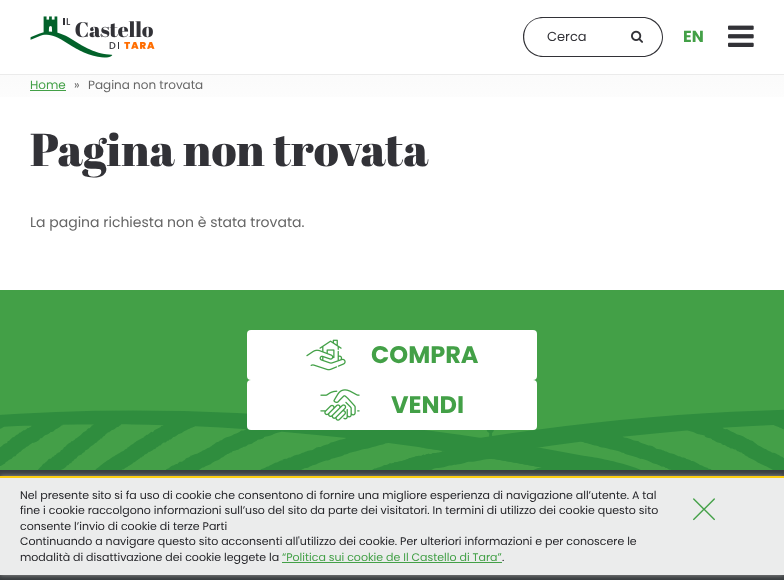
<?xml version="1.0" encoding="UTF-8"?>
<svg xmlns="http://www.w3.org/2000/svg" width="784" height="580">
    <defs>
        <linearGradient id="g1" gradientUnits="userSpaceOnUse" x1="392" y1="67" x2="392" y2="470"><stop offset="0" stop-color="#FAFAFA"/><stop offset="0.15" stop-color="#FFFFFF"/></linearGradient>
        <clipPath id="clip1"><path d="M 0 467 H 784 V 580 H 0 Z M 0 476 H 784 V 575 H 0 Z" clip-rule="evenodd"/></clipPath>
        <filter id="blur1" x="-50%" y="-200%" width="200%" height="500%"><feGaussianBlur stdDeviation="2.5"/></filter>
    </defs>
    <rect width="100%" height="100%" fill="#FFFFFF"/>
    <rect x="0" y="74" width="784" height="1" fill="#EBEBEB"/>
    <image x="30" y="16" width="125" height="42" href="img_01.png"/>
    <path d="M 543 17 H 623 V 57 H 543 C 532 57 523 48 523 37 C 523 26 532 17 543 17 Z M 543 18 H 623 V 56 H 543 C 518 55 518 18 543 18 Z" fill="#323237" fill-rule="evenodd"/>
    <text x="547" y="41" font-family="Poppins" font-size="13" fill="#323237">Cerca</text>
    <path d="M 623 17 H 643 C 654 17 663 26 663 37 C 663 48 654 57 643 57 H 623 Z M 623 18 H 643 C 653 18 662 27 662 37 C 662 47 653 56 643 56 H 623 Z" fill="#323237" fill-rule="evenodd"/>
    <image x="631" y="30" width="12" height="13" href="img_02.png"/>
    <text x="683" y="42" font-family="Poppins" font-size="16" font-weight="700" fill="#43A047">EN</text>
    <image x="728" y="25" width="26" height="22" href="img_03.png"/>
    <rect x="0" y="75" width="784" height="22" fill="url(#g1)"/>
    <text x="30" y="89" font-family="Poppins" font-size="12" fill="#43A047">Home</text>
    <rect x="30" y="90" width="36" height="1" fill="#43A047"/>
    <text x="74" y="89" font-family="Poppins" font-size="12" fill="#666666">»</text>
    <text x="88" y="89" font-family="Poppins" font-size="12" fill="#666666">Pagina non trovata</text>
    <text x="30" y="166" font-family="Abril Fatface" font-size="46" fill="#323237">Pagina non trovata</text>
    <text x="30" y="227" font-family="Poppins" font-size="14" fill="#666666">La pagina richiesta non è stata trovata.</text>
    <rect x="0" y="290" width="784" height="180" fill="#43A047"/>
    <image x="0" y="409" width="784" height="61" href="img_04.png"/>
    <rect x="247" y="330" width="290" height="50" rx="4" fill="#FFFFFF"/>
    <image x="306" y="339" width="40" height="32" href="img_05.png"/>
    <text x="371" y="363" font-family="Poppins" font-size="24" font-weight="700" fill="#43A047">COMPRA</text>
    <rect x="247" y="380" width="290" height="50" rx="4" fill="#FFFFFF"/>
    <image x="320" y="389" width="40" height="32" href="img_06.png"/>
    <text x="391" y="413" font-family="Poppins" font-size="24" font-weight="700" fill="#43A047">VENDI</text>
    <rect x="0" y="470" width="784" height="110" fill="#383C3F"/>
    <rect x="0" y="478" width="784" height="97" fill="#EBECEC"/>
    <g clip-path="url(#clip1)">
        <rect x="0" y="476" width="784" height="99" fill="#999999" filter="url(#blur1)"/>
    </g>
    <rect x="0" y="476" width="784" height="2" fill="#FDCD10"/>
    <text font-family="Poppins" font-size="11" fill="#242428">
        <tspan x="20" y="499">Nel presente sito si fa uso di cookie che consentono di fornire una migliore esperienza di navigazione all’utente. A tal</tspan>
        <tspan x="20" y="514">fine i cookie raccolgono informazioni sull’uso del sito da parte dei visitatori. In termini di utilizzo dei cookie questo sito</tspan>
        <tspan x="20" y="530">consente l’invio di cookie di terze Parti</tspan>
        <tspan x="20" y="545">Continuando a navigare questo sito acconsenti all'utilizzo dei cookie. Per ulteriori informazioni e per conoscere le</tspan>
        <tspan x="20" y="561">modalità di disattivazione dei cookie leggete la</tspan>
    </text>
    <text x="282" y="561" font-family="Poppins" font-size="11" fill="#43A047">“Politica sui cookie de Il Castello di Tara”</text>
    <rect x="282" y="562" width="220" height="1" fill="#43A047"/>
    <text x="502" y="561" font-family="Poppins" font-size="11" fill="#242428">.</text>
    <image x="693" y="498" width="22" height="23" href="img_07.png"/>
</svg>
